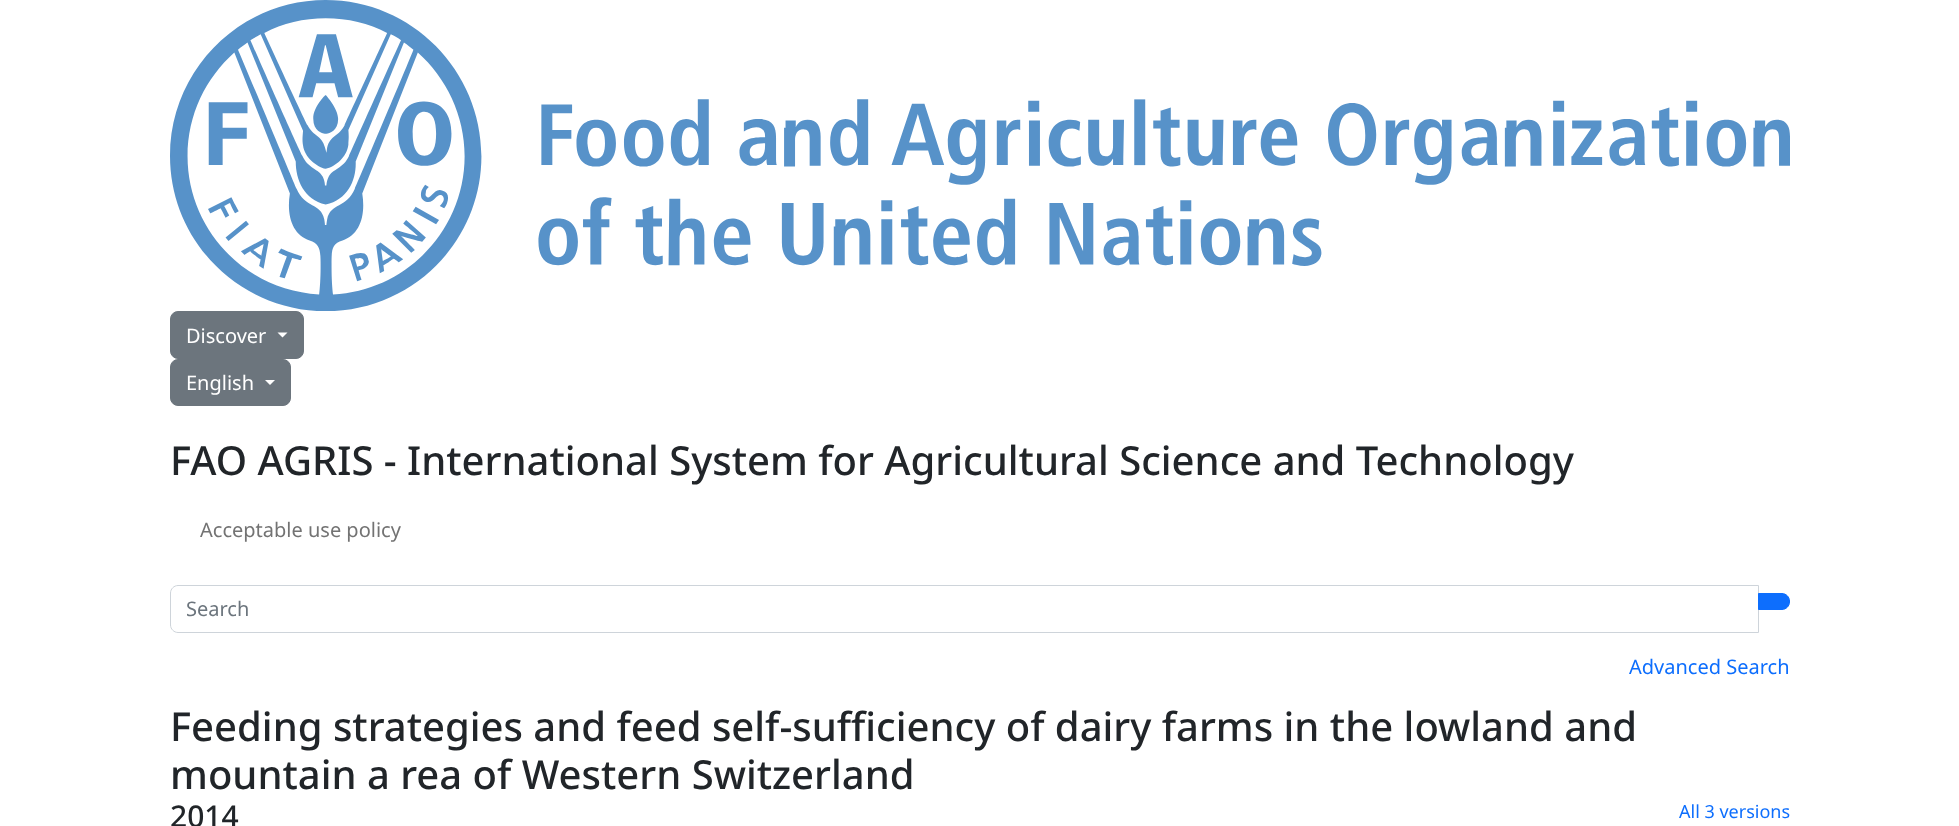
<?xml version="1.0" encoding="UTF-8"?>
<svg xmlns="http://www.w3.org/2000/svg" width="1959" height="826">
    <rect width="100%" height="100%" fill="#FFFFFF"/>
    <image x="170" y="0" width="1620" height="311" href="img_01.png"/>
    <rect x="170.5" y="311.5" width="133" height="47" rx="7.5" fill="#6C757D" stroke="#6C757D"/>
    <text x="186" y="343" font-family="Noto Sans" font-size="20" fill="#FFFFFF">Discover</text>
    <path d="M 277.5 332.5 H 287.5 L 282.5 337.5 Z" fill="#FFFFFF"/>
    <rect x="170.5" y="359.5" width="120" height="46" rx="7.5" fill="#6C757D" stroke="#6C757D"/>
    <text x="186" y="390" font-family="Noto Sans" font-size="20" fill="#FFFFFF">English</text>
    <path d="M 265 380 H 275 L 270 385 Z" fill="#FFFFFF"/>
    <text x="170" y="475" font-family="Noto Sans" font-size="40" font-weight="500" fill="#212529">FAO AGRIS - International System for Agricultural Science and Technology</text>
    <text x="200" y="537" font-family="Noto Sans" font-size="20" fill="#737373">Acceptable use policy</text>
    <path d="M 178 585.5 H 1758.5 V 632.5 H 178 C 174 632.5 170.5 629 170.5 625 V 593 C 170.5 589 174 585.5 178 585.5 Z" fill="none" stroke="#CED4DA"/>
    <text x="186" y="616" font-family="Noto Sans" font-size="20" fill="#6C757D">Search</text>
    <path d="M 1758.5 593.5 H 1782 C 1786 593.5 1789.5 597 1789.5 601 V 602 C 1789.5 606 1786 609.5 1782 609.5 H 1758.5 Z" fill="#0D6EFD" stroke="#0D6EFD"/>
    <text x="1629" y="674" font-family="Noto Sans" font-size="20" fill="#0D6EFD">Advanced Search</text>
    <text font-family="Noto Sans" font-size="40" font-weight="500" fill="#212529">
        <tspan x="170" y="741">Feeding strategies and feed self-sufficiency of dairy farms in the lowland and</tspan>
        <tspan x="170" y="789">mountain a rea of Western Switzerland</tspan>
    </text>
    <text x="170" y="827" font-family="Noto Sans" font-size="30" font-weight="500" fill="#212529">2014</text>
    <text x="1679" y="818" font-family="Noto Sans" font-size="18" fill="#0D6EFD">All 3 versions</text>
</svg>
